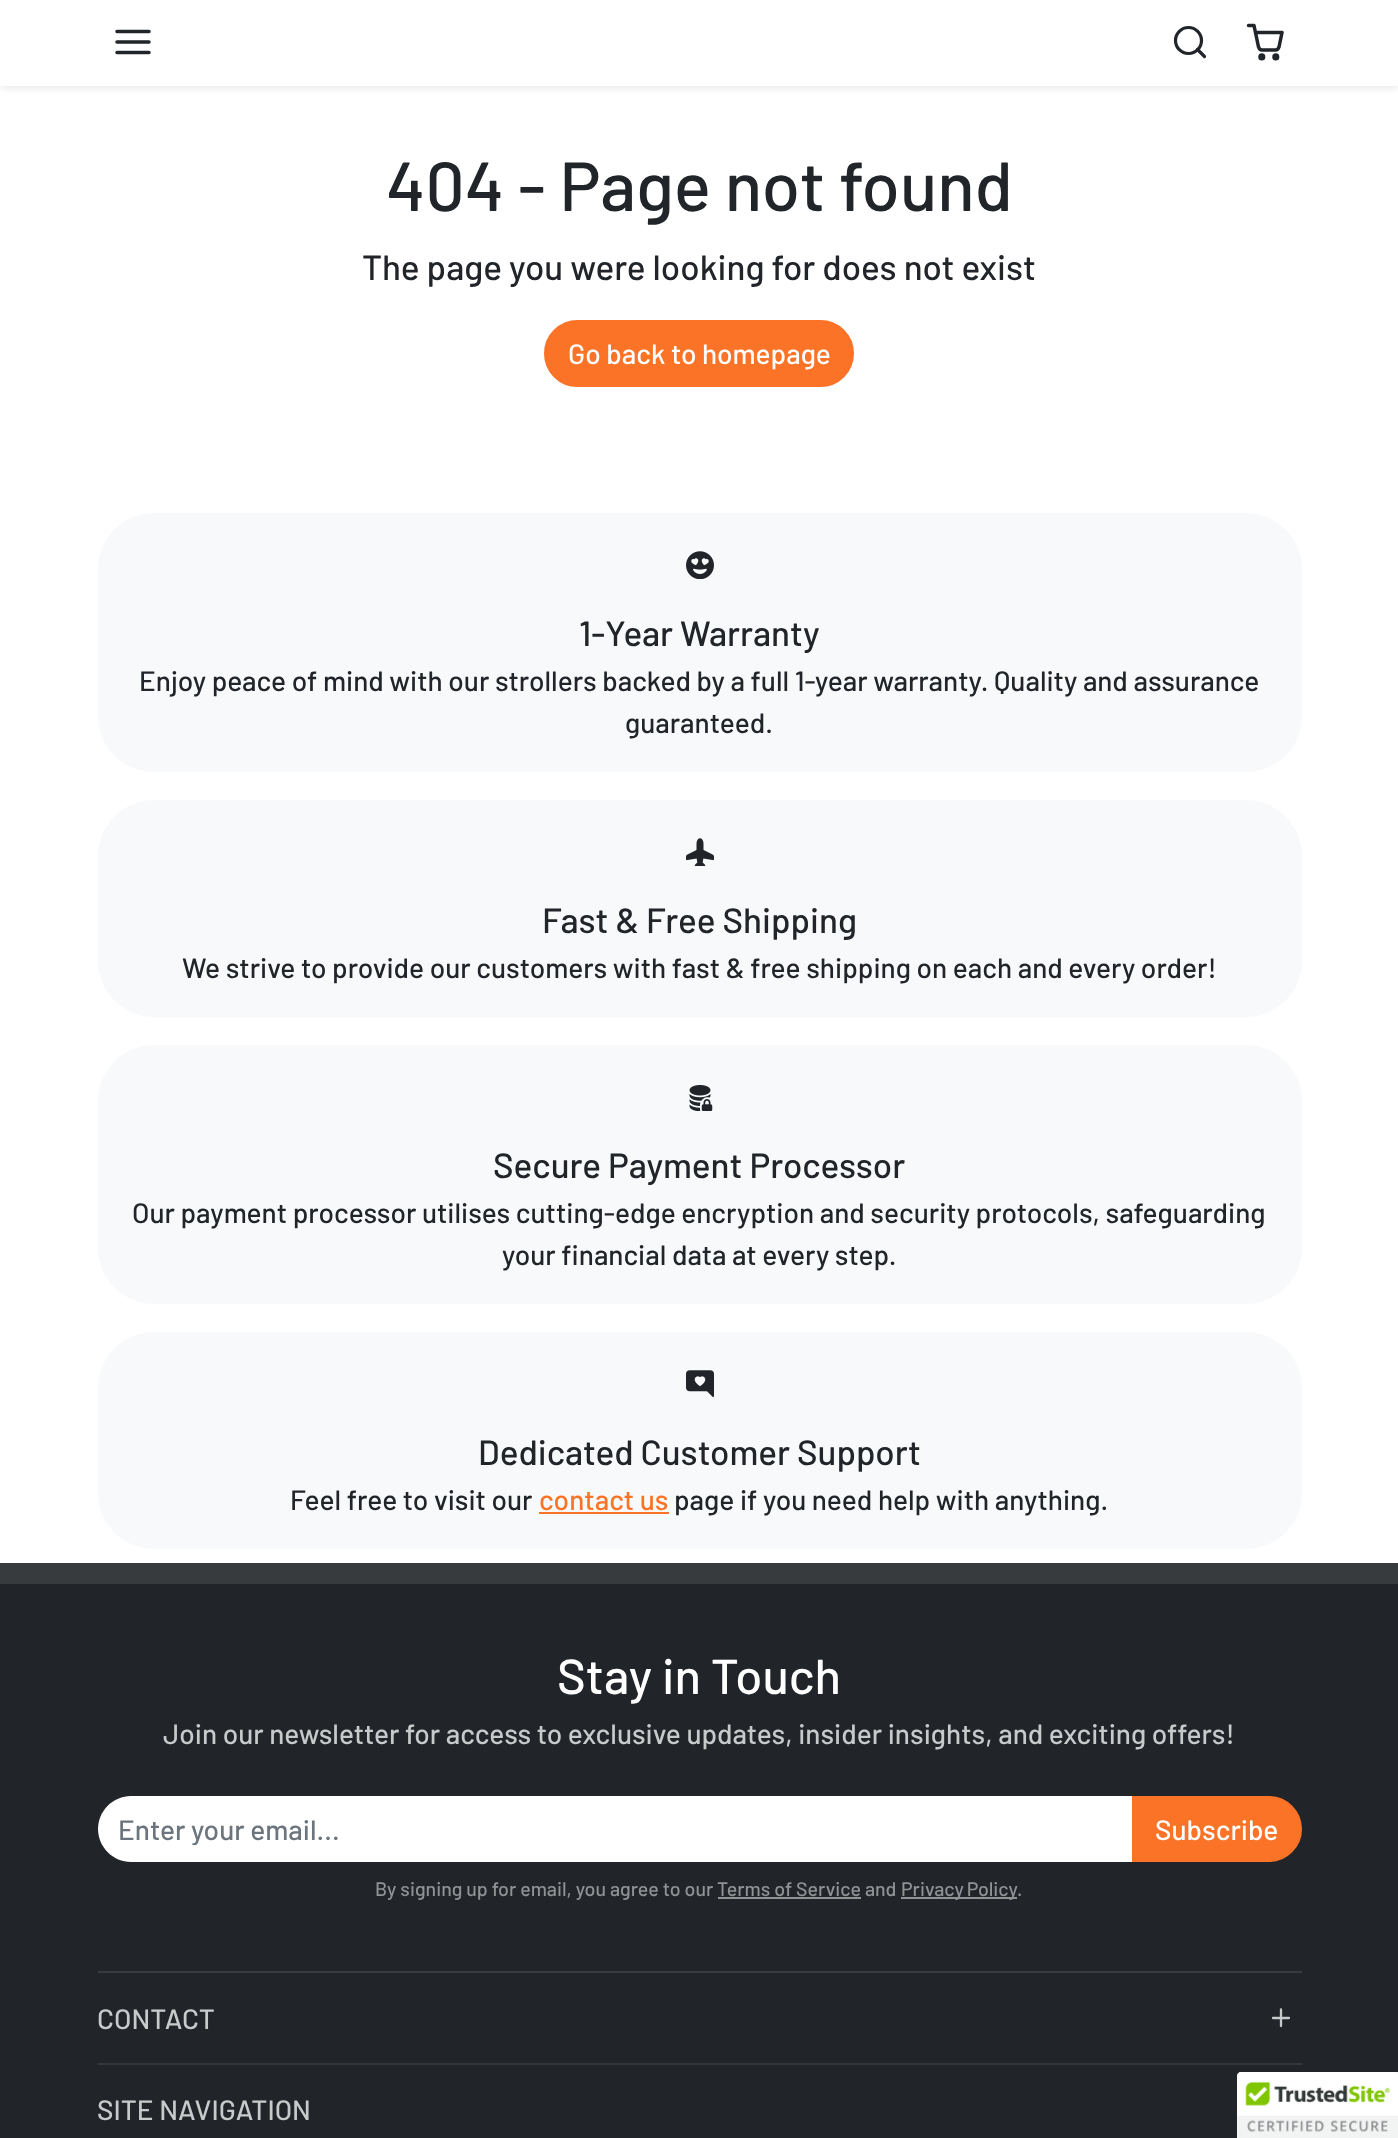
<?xml version="1.0" encoding="UTF-8"?>
<svg xmlns="http://www.w3.org/2000/svg" width="1398" height="2138">
    <defs>
        <filter id="blur1" x="-50%" y="-200%" width="200%" height="500%"><feGaussianBlur stdDeviation="3.5"/></filter>
        <clipPath id="clip1"><rect x="119" y="1811" width="994" height="34"/></clipPath>
    </defs>
    <rect width="100%" height="100%" fill="#FFFFFF"/>
    <rect x="0" y="4" width="1398" height="85" fill="#000000" fill-opacity="0.07" filter="url(#blur1)"/>
    <rect x="0" y="0" width="1398" height="86" fill="#FFFFFF"/>
    <path d="M 117 42 H 149 M 117 31.5 H 149 M 117 52.5 H 149" fill="none" stroke="#212529" stroke-width="3.5" stroke-linecap="round" stroke-linejoin="round"/>
    <circle cx="1188.5" cy="40.5" r="13" fill="none" stroke="#212529" stroke-width="3.2"/>
    <path d="M 1204.5 56.5 L 1197.5 49.5" fill="none" stroke="#212529" stroke-width="3.2" stroke-linecap="round" stroke-linejoin="round"/>
    <circle cx="1261.8" cy="56.9" r="1.8" fill="none" stroke="#212529" stroke-width="3.5"/>
    <circle cx="1275.8" cy="56.9" r="1.8" fill="none" stroke="#212529" stroke-width="3.5"/>
    <path d="M 1248.5 25.5 H 1254 L 1258.5 47 C 1259 48.5 1260.5 50 1262 50 H 1275.5 C 1277.5 50 1278.5 48.5 1279 47 L 1282 32.5 H 1256.5" fill="none" stroke="#212529" stroke-width="3.5" stroke-linecap="round" stroke-linejoin="round"/>
    <text x="386" y="211" font-family="Barlow" font-size="69.25" font-weight="500" fill="#212529">404 - Page not found</text>
    <text x="362" y="280" font-family="Barlow" font-size="35" font-weight="500" fill="#212529">The page you were looking for does not exist</text>
    <rect x="545" y="321" width="308" height="65" rx="32.5" fill="#FB7327" stroke="#FB7327" stroke-width="2"/>
    <text x="568" y="364" font-family="Barlow" font-size="28" font-weight="500" fill="#FFFFFF">Go back to homepage</text>
    <rect x="98" y="513" width="1204" height="259" rx="56" fill="#F8F9FA"/>
    <image x="686" y="551" width="28" height="28" href="img_01.png"/>
    <text x="579" y="646" font-family="Barlow" font-size="35" font-weight="500" fill="#212529">1-Year Warranty</text>
    <text x="139" y="691" font-family="Barlow" font-size="28" font-weight="500" fill="#212529">Enjoy peace of mind with our strollers backed by a full 1-year warranty. Quality and assurance</text>
    <text x="625" y="733" font-family="Barlow" font-size="28" font-weight="500" fill="#212529">guaranteed.</text>
    <rect x="98" y="800" width="1204" height="217" rx="56" fill="#F8F9FA"/>
    <image x="686" y="838" width="28" height="28" href="img_02.png"/>
    <text x="542" y="933" font-family="Barlow" font-size="35" font-weight="500" fill="#212529">Fast &amp; Free Shipping</text>
    <text x="182" y="978" font-family="Barlow" font-size="28" font-weight="500" fill="#212529">We strive to provide our customers with fast &amp; free shipping on each and every order!</text>
    <rect x="98" y="1045" width="1204" height="259" rx="56" fill="#F8F9FA"/>
    <image x="689" y="1085" width="24" height="26" href="img_03.png"/>
    <text x="493" y="1178" font-family="Barlow" font-size="35" font-weight="500" fill="#212529">Secure Payment Processor</text>
    <text x="132" y="1223" font-family="Barlow" font-size="28" font-weight="500" fill="#212529">Our payment processor utilises cutting-edge encryption and security protocols, safeguarding</text>
    <text x="502" y="1265" font-family="Barlow" font-size="28" font-weight="500" fill="#212529">your financial data at every step.</text>
    <rect x="98" y="1332" width="1204" height="217" rx="56" fill="#F8F9FA"/>
    <image x="686" y="1370" width="28" height="27" href="img_04.png"/>
    <text x="478" y="1465" font-family="Barlow" font-size="35" font-weight="500" fill="#212529">Dedicated Customer Support</text>
    <text x="290" y="1510" font-family="Barlow" font-size="28" font-weight="500" fill="#212529">Feel free to visit our</text>
    <text x="539" y="1510" font-family="Barlow" font-size="28" font-weight="500" fill="#FB7327">contact us</text>
    <rect x="539" y="1512" width="130" height="2" fill="#FB7327"/>
    <text x="674" y="1510" font-family="Barlow" font-size="28" font-weight="500" fill="#212529">page if you need help with anything.</text>
    <rect x="0" y="1563" width="1398" height="21" fill="#373B3E"/>
    <rect x="0" y="1584" width="1398" height="554" fill="#212529"/>
    <rect x="98" y="1971" width="1204" height="2" fill="#373B3E"/>
    <text x="557" y="1694" font-family="Barlow" font-size="49" font-weight="500" fill="#FFFFFF">Stay in Touch</text>
    <text x="163" y="1744" font-family="Barlow" font-size="28" font-weight="500" fill="#C8C9CA">Join our newsletter for access to exclusive updates, insider insights, and exciting offers!</text>
    <path d="M 131 1796 H 1134 V 1862 H 131 C 113 1862 98 1847 98 1829 C 98 1811 113 1796 131 1796 Z" fill="#FFFFFF"/>
    <g clip-path="url(#clip1)">
        <text x="118" y="1840" font-family="Barlow" font-size="28" font-weight="500" fill="#6C757D">Enter your email...</text>
    </g>
    <path d="M 1133 1797 H 1269 C 1286.5 1797 1301 1811.5 1301 1829 C 1301 1846.5 1286.5 1861 1269 1861 H 1133 Z" fill="#FB7327" stroke="#FB7327" stroke-width="2"/>
    <text x="1155" y="1840" font-family="Barlow" font-size="28" font-weight="500" fill="#FFFFFF">Subscribe</text>
    <text x="375" y="1896" font-family="Barlow" font-size="19.6" font-weight="500" fill="#909294">By signing up for email, you agree to our</text>
    <text x="717" y="1896" font-family="Barlow" font-size="19.6" font-weight="500" fill="#909294">Terms of Service and</text>
    <rect x="718" y="1897" width="143" height="2" fill="#909294"/>
    <rect x="901" y="1897" width="116" height="2" fill="#909294"/>
    <text x="901" y="1896" word-spacing="-1" font-family="Barlow" font-size="19.6" font-weight="500" fill="#909294">Privacy Policy</text>
    <text x="1017" y="1896" font-family="Barlow" font-size="19.6" font-weight="500" fill="#909294">.</text>
    <rect x="98" y="2063" width="1204" height="2" fill="#323539"/>
    <text x="97" y="2029" font-family="Barlow" font-size="28" font-weight="500" fill="#C8C9CA">CONTACT</text>
    <path d="M 1281 2009.5 V 2026 M 1273 2018 H 1289" fill="none" stroke="#C8C9CA" stroke-width="2.3" stroke-linecap="round" stroke-linejoin="round"/>
    <text x="97" y="2120" font-family="Barlow" font-size="28" font-weight="500" fill="#C8C9CA">SITE NAVIGATION</text>
    <path d="M 1241 2072 H 1398 V 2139 H 1237 V 2076 C 1237 2074 1239 2072 1241 2072 Z" fill="#FFFFFF"/>
    <image x="1237" y="2072" width="161" height="66" href="img_05.png"/>
</svg>
